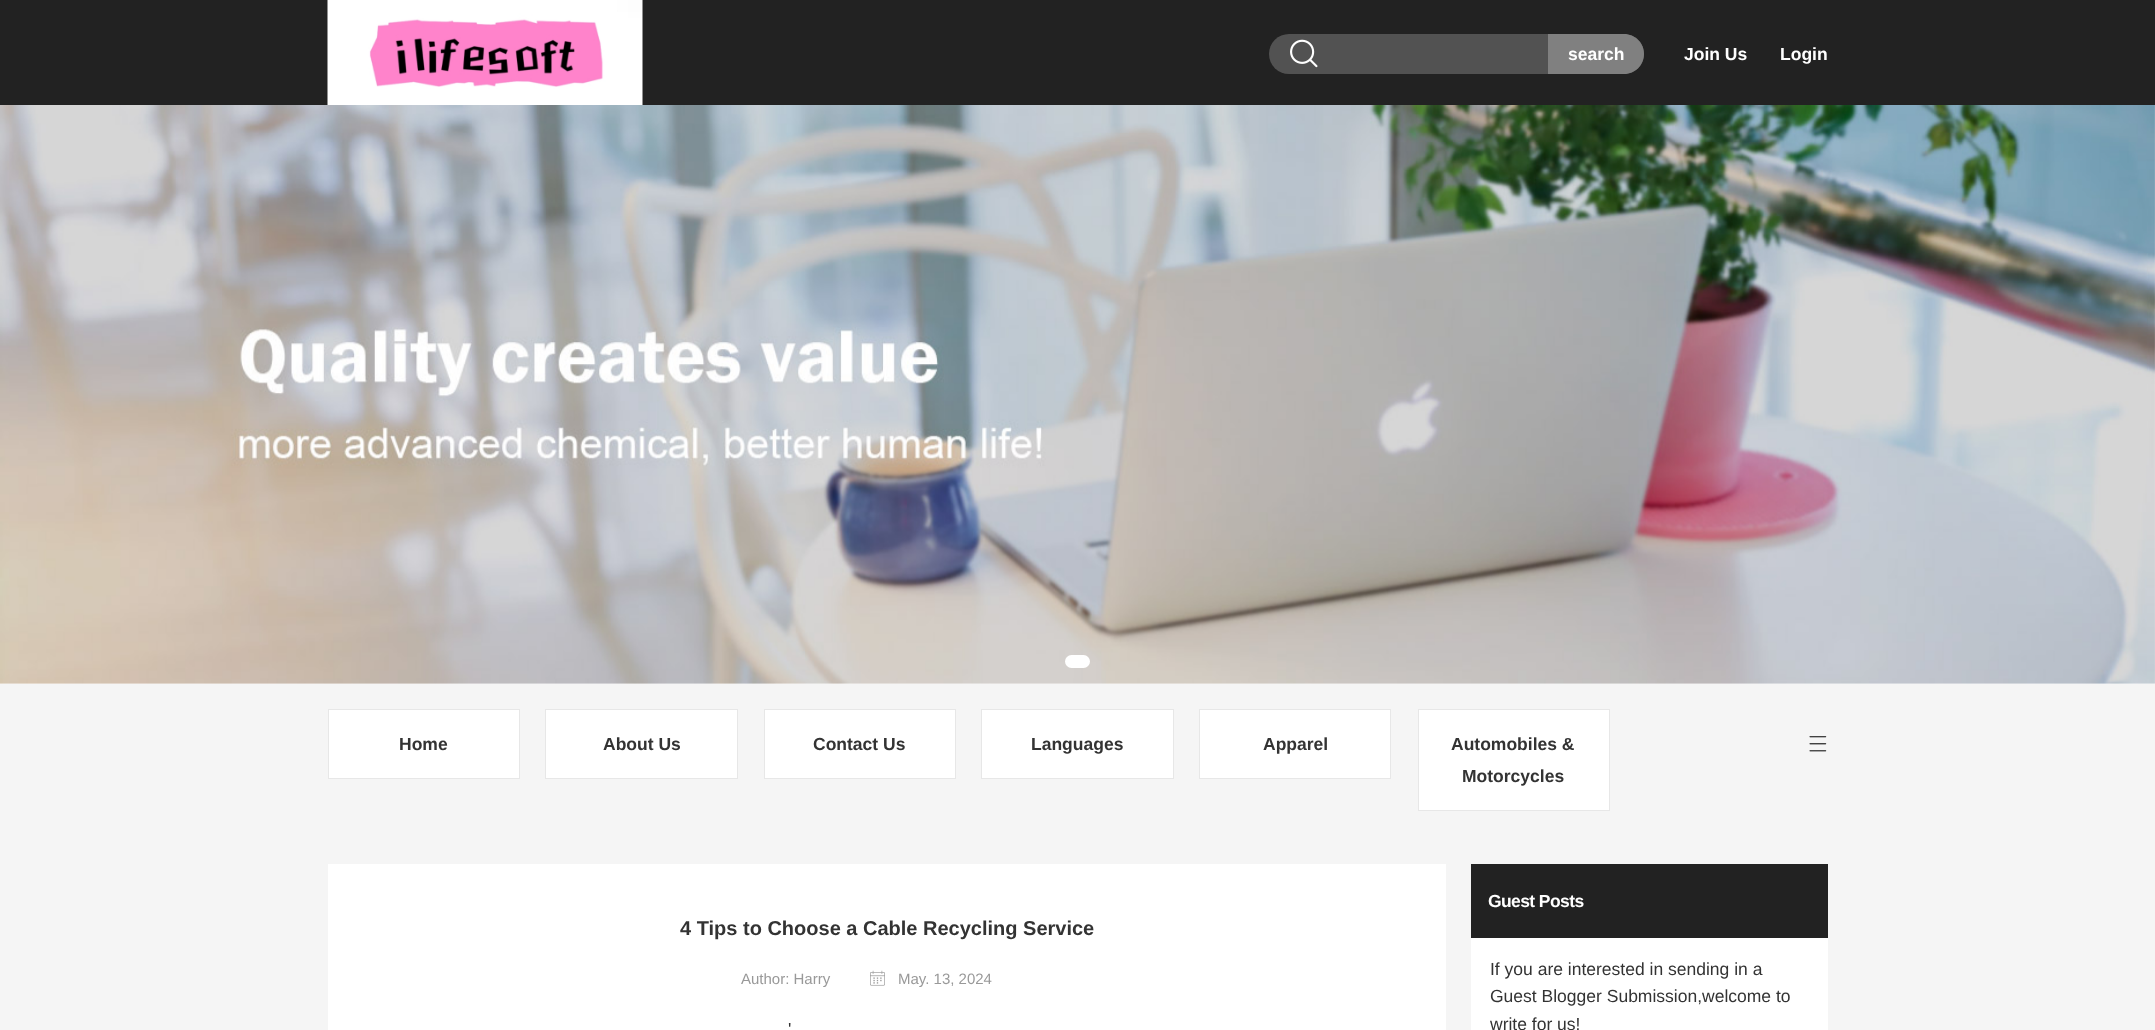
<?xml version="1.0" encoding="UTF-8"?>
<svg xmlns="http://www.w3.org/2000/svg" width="2155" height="1030">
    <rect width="100%" height="100%" fill="#F5F5F5"/>
    <rect x="0" y="0" width="2155" height="105" fill="#222222"/>
    <image x="327" y="0" width="316" height="105" href="img_01.png"/>
    <rect x="1269" y="34" width="375" height="40" rx="20" fill="#525252"/>
    <image x="1290" y="39" width="28" height="29" href="img_02.png"/>
    <path d="M 1548 34 H 1624 C 1635 34 1644 43 1644 54 C 1644 65 1635 74 1624 74 H 1548 Z" fill="#808080"/>
    <text x="1568" y="60" font-family="Liberation Sans" font-size="17.5" font-weight="700" fill="#FFFFFF">search</text>
    <text x="1684" y="60" font-family="Liberation Sans" font-size="17.5" font-weight="700" fill="#FFFFFF">Join Us</text>
    <text x="1780" y="60" font-family="Liberation Sans" font-size="17.5" font-weight="700" fill="#FFFFFF">Login</text>
    <rect x="0" y="105" width="2155" height="579" fill="#FFFFFF"/>
    <image x="0" y="105" width="2155" height="579" href="img_03.png"/>
    <rect x="1065" y="655" width="25" height="13" rx="6.5" fill="#FFFFFF"/>
    <rect x="328.5" y="709.5" width="191" height="69" fill="#FFFFFF" stroke="#E7E7E7"/>
    <text x="399" y="750" font-family="Liberation Sans" font-size="17.5" font-weight="700" fill="#333333">Home</text>
    <rect x="545.5" y="709.5" width="192" height="69" fill="#FFFFFF" stroke="#E7E7E7"/>
    <text x="603" y="750" font-family="Liberation Sans" font-size="17.5" font-weight="700" fill="#333333">About Us</text>
    <rect x="764.5" y="709.5" width="191" height="69" fill="#FFFFFF" stroke="#E7E7E7"/>
    <text x="813" y="750" font-family="Liberation Sans" font-size="17.5" font-weight="700" fill="#333333">Contact Us</text>
    <rect x="981.5" y="709.5" width="192" height="69" fill="#FFFFFF" stroke="#E7E7E7"/>
    <text x="1031" y="750" font-family="Liberation Sans" font-size="17.5" font-weight="700" fill="#333333">Languages</text>
    <rect x="1199.5" y="709.5" width="191" height="69" fill="#FFFFFF" stroke="#E7E7E7"/>
    <text x="1263" y="750" font-family="Liberation Sans" font-size="17.5" font-weight="700" fill="#333333">Apparel</text>
    <rect x="1418.5" y="709.5" width="191" height="101" fill="#FFFFFF" stroke="#E7E7E7"/>
    <text x="1451" y="750" font-family="Liberation Sans" font-size="17.5" font-weight="700" fill="#333333">Automobiles &amp;</text>
    <text x="1462" y="782" font-family="Liberation Sans" font-size="17.5" font-weight="700" fill="#333333">Motorcycles</text>
    <image x="1809" y="736" width="18" height="16" href="img_04.png"/>
    <rect x="328" y="864" width="1118" height="166" fill="#FFFFFF"/>
    <text x="680" y="935" font-family="Liberation Sans" font-size="20" font-weight="700" fill="#333333">4 Tips to Choose a Cable Recycling Service</text>
    <text x="741" y="984" font-family="Liberation Sans" font-size="15" fill="#999999">Author: Harry</text>
    <image x="870" y="970" width="15" height="16" href="img_05.png"/>
    <text x="898" y="984" font-family="Liberation Sans" font-size="15" fill="#999999">May. 13, 2024</text>
    <text x="788" y="1035" font-family="Liberation Sans" font-size="17.5" fill="#333333">'</text>
    <rect x="1471" y="938" width="357" height="92" fill="#FFFFFF"/>
    <rect x="1471" y="864" width="357" height="74" fill="#222222"/>
    <text x="1488" y="907" font-family="Liberation Sans" font-size="17.5" font-weight="700" letter-spacing="-0.6" fill="#FFFFFF">Guest Posts</text>
    <text font-family="Liberation Sans" font-size="17.5" fill="#333333">
        <tspan x="1490" y="975">If you are interested in sending in a</tspan>
        <tspan x="1490" y="1002">Guest Blogger Submission,welcome to</tspan>
        <tspan x="1490" y="1030">write for us!</tspan>
    </text>
</svg>
